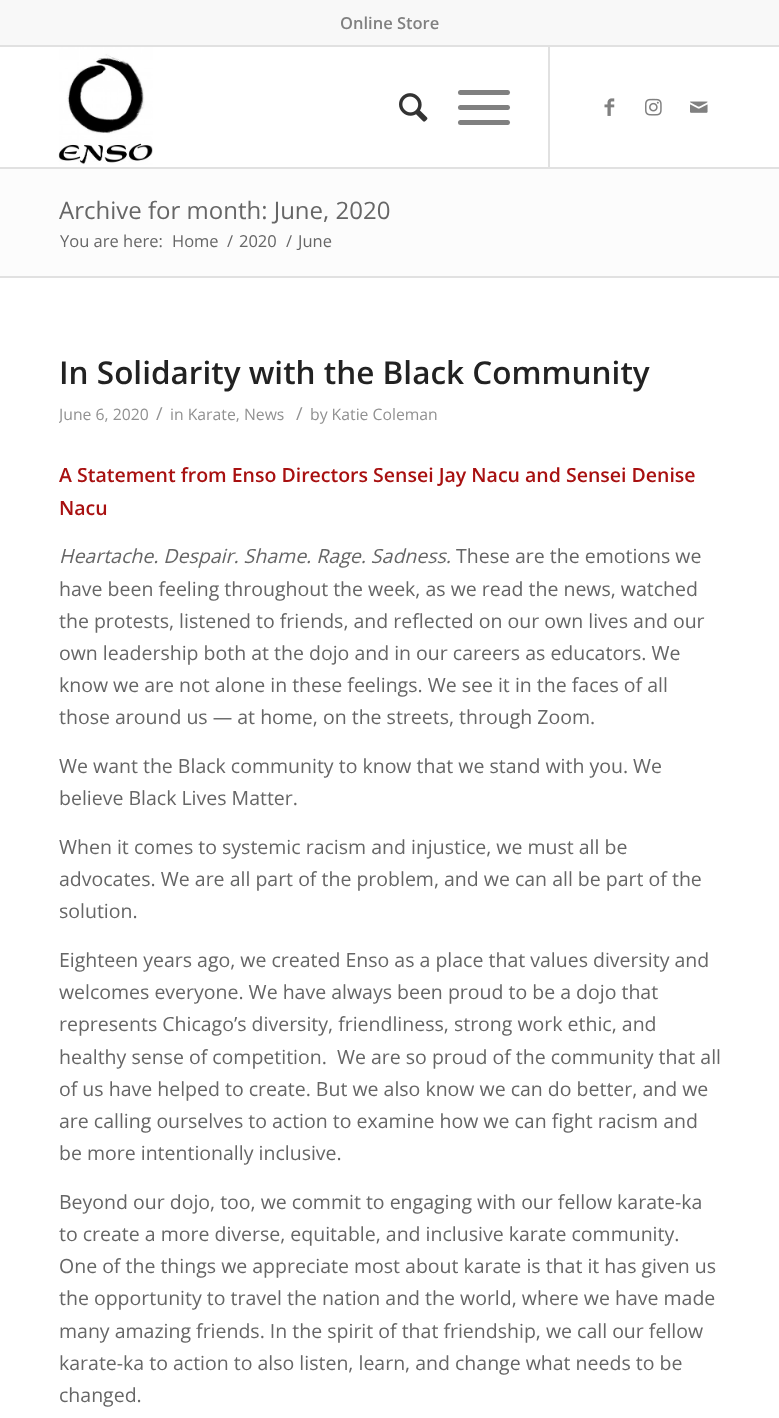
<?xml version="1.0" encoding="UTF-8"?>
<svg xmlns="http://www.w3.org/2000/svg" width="779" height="1418">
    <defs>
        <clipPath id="clip1"><rect x="59" y="353" width="663" height="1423"/></clipPath>
    </defs>
    <rect width="100%" height="100%" fill="#FFFFFF"/>
    <rect x="0" y="0" width="779" height="45" fill="#F8F8F8"/>
    <rect x="0" y="45" width="779" height="2" fill="#E1E1E1"/>
    <text x="340" y="29" font-family="Open Sans" font-size="16.5" font-weight="600" fill="#808080">Online Store</text>
    <rect x="0" y="167" width="779" height="2" fill="#E1E1E1"/>
    <image x="58" y="47" width="95" height="118" href="img_01.png"/>
    <rect x="548" y="47" width="2" height="120" fill="#E1E1E1"/>
    <image x="399" y="93" width="29" height="29" href="img_02.png"/>
    <rect x="458" y="105" width="52" height="5" rx="2.5" fill="#808080"/>
    <rect x="458" y="90" width="52" height="5" rx="2.5" fill="#808080"/>
    <rect x="458" y="120" width="52" height="5" rx="2.5" fill="#808080"/>
    <image x="604" y="98" width="11" height="18" href="img_03.png"/>
    <image x="645" y="98" width="17" height="18" href="img_04.png"/>
    <image x="690" y="101" width="18" height="12" href="img_05.png"/>
    <rect x="0" y="169" width="779" height="107" fill="#FCFCFC"/>
    <text x="59" y="219" font-family="Open Sans" font-size="24" fill="#666666">Archive for month: June, 2020</text>
    <text x="60" y="247" font-family="Open Sans" font-size="16.5" fill="#666666">You are here:</text>
    <text x="172" y="247" font-family="Open Sans" font-size="16.5" fill="#666666">Home</text>
    <text x="227" y="247" font-family="Open Sans" font-size="16.5" fill="#666666">/</text>
    <text x="239" y="247" font-family="Open Sans" font-size="16.5" fill="#666666">2020</text>
    <text x="286" y="247" font-family="Open Sans" font-size="16.5" fill="#666666">/</text>
    <text x="298" y="247" font-family="Open Sans" font-size="16.5" fill="#666666">June</text>
    <rect x="0" y="276" width="779" height="2" fill="#E1E1E1"/>
    <text x="59" y="384" font-family="Open Sans" font-size="31.5" font-weight="600" fill="#222222">In Solidarity with the Black Community</text>
    <g clip-path="url(#clip1)">
        <text x="59" y="420" font-family="Open Sans" font-size="15.75" fill="#919191">June 6, 2020</text>
    </g>
    <text x="156" y="420" font-family="Open Sans" font-size="18" fill="#919191">/</text>
    <text x="170" y="420" font-family="Open Sans" font-size="15.75" fill="#919191">in Karate, News</text>
    <text x="296" y="420" font-family="Open Sans" font-size="18" fill="#919191">/</text>
    <text x="310" y="420" font-family="Open Sans" font-size="15.75" fill="#919191">by Katie Coleman</text>
    <text font-family="Open Sans" font-size="19.5" font-weight="600" fill="#A81010">
        <tspan x="59" y="482">A Statement from Enso Directors Sensei Jay Nacu and Sensei Denise</tspan>
        <tspan x="59" y="515">Nacu</tspan>
    </text>
    <text x="59" y="563" font-family="Open Sans" font-size="19.5" font-style="italic" fill="#666666">Heartache. Despair. Shame. Rage. Sadness.</text>
    <text x="456" y="563" font-family="Open Sans" font-size="19.5" fill="#666666">These are the emotions we</text>
    <text font-family="Open Sans" font-size="19.5" fill="#666666">
        <tspan x="59" y="596">have been feeling throughout the week, as we read the news, watched</tspan>
        <tspan x="59" y="628">the protests, listened to friends, and reflected on our own lives and our</tspan>
        <tspan x="59" y="660">own leadership both at the dojo and in our careers as educators. We</tspan>
        <tspan x="59" y="692">know we are not alone in these feelings. We see it in the faces of all</tspan>
        <tspan x="59" y="724">those around us — at home, on the streets, through Zoom.</tspan>
    </text>
    <text font-family="Open Sans" font-size="19.5" fill="#666666">
        <tspan x="59" y="773">We want the Black community to know that we stand with you. We</tspan>
        <tspan x="59" y="805">believe Black Lives Matter.</tspan>
    </text>
    <text font-family="Open Sans" font-size="19.5" fill="#666666">
        <tspan x="59" y="854">When it comes to systemic racism and injustice, we must all be</tspan>
        <tspan x="59" y="886">advocates. We are all part of the problem, and we can all be part of the</tspan>
        <tspan x="59" y="918">solution.</tspan>
    </text>
    <text font-family="Open Sans" font-size="19.5" fill="#666666" xml:space="preserve"><tspan x="59" y="967">Eighteen years ago, we created Enso as a place that values diversity and</tspan><tspan x="59" y="999">welcomes everyone. We have always been proud to be a dojo that</tspan><tspan x="59" y="1031">represents Chicago’s diversity, friendliness, strong work ethic, and</tspan><tspan x="59" y="1064">healthy sense of competition.  We are so proud of the community that all</tspan><tspan x="59" y="1096">of us have helped to create. But we also know we can do better, and we</tspan><tspan x="59" y="1128">are calling ourselves to action to examine how we can fight racism and</tspan><tspan x="59" y="1160">be more intentionally inclusive.</tspan></text>
    <text font-family="Open Sans" font-size="19.5" fill="#666666">
        <tspan x="59" y="1209">Beyond our dojo, too, we commit to engaging with our fellow karate-ka</tspan>
        <tspan x="59" y="1241">to create a more diverse, equitable, and inclusive karate community.</tspan>
        <tspan x="59" y="1273">One of the things we appreciate most about karate is that it has given us</tspan>
        <tspan x="59" y="1305">the opportunity to travel the nation and the world, where we have made</tspan>
        <tspan x="59" y="1338">many amazing friends. In the spirit of that friendship, we call our fellow</tspan>
        <tspan x="59" y="1370">karate-ka to action to also listen, learn, and change what needs to be</tspan>
        <tspan x="59" y="1402">changed.</tspan>
    </text>
</svg>
